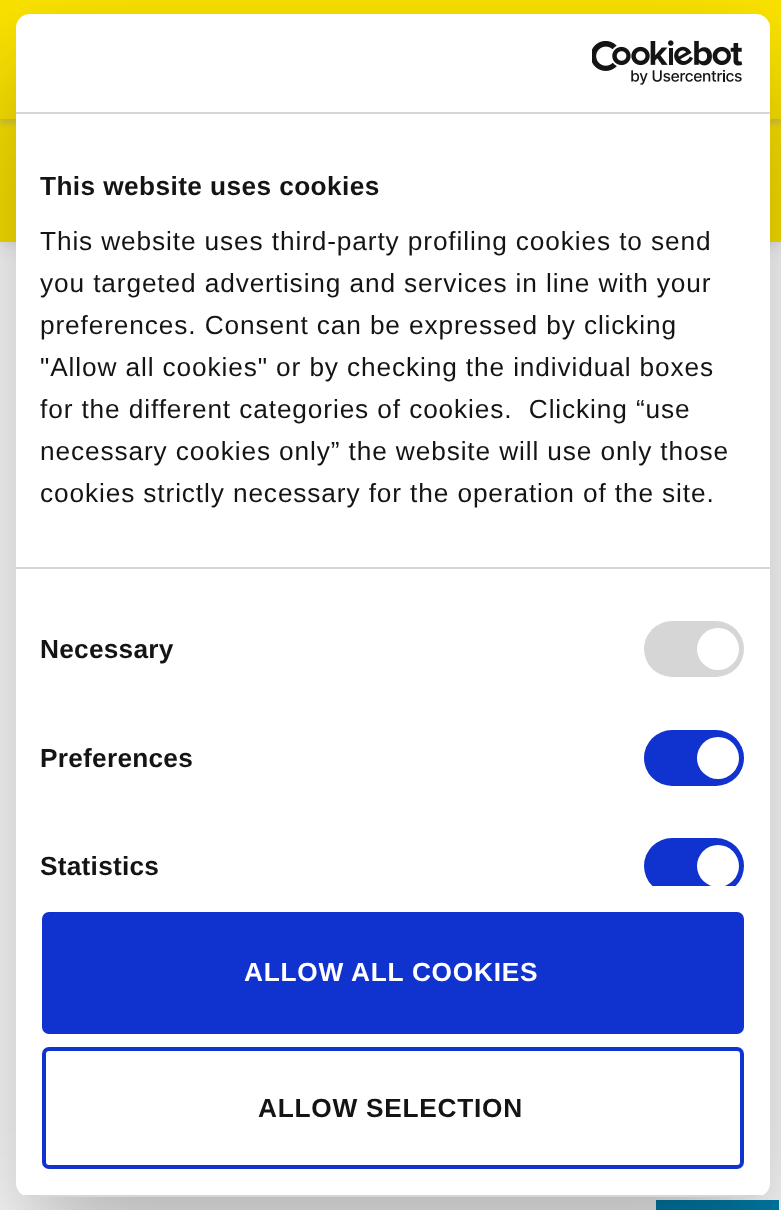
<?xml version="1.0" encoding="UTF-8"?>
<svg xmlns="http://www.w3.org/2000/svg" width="781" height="1210">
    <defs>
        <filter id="blur1" x="-50%" y="-200%" width="200%" height="500%"><feGaussianBlur stdDeviation="9"/></filter>
        <clipPath id="clip1"><rect x="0" y="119" width="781" height="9"/></clipPath>
        <filter id="blur2" x="-50%" y="-200%" width="200%" height="500%"><feGaussianBlur stdDeviation="2.5"/></filter>
        <filter id="blur3" x="-50%" y="-200%" width="200%" height="500%"><feGaussianBlur stdDeviation="59.5"/></filter>
        <clipPath id="clip2"><rect x="16" y="114" width="754" height="772"/></clipPath>
        <clipPath id="clip3"><rect x="16" y="14" width="754" height="1183" rx="14"/></clipPath>
    </defs>
    <rect width="100%" height="100%" fill="#FFFFFF"/>
    <rect x="2" y="2" width="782" height="241" fill="#000000" fill-opacity="0.15" filter="url(#blur1)"/>
    <rect x="0" y="0" width="781" height="242" fill="#FCE300"/>
    <g clip-path="url(#clip1)">
        <rect x="0" y="5" width="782" height="119" fill="#9B9B9B" fill-opacity="0.35" filter="url(#blur2)"/>
    </g>
    <rect x="656" y="1200" width="123" height="10" fill="#007EAB"/>
    <rect x="16" y="70" width="754" height="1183" rx="14" fill="#000000" fill-opacity="0.3" filter="url(#blur3)"/>
    <rect x="16" y="14" width="754" height="1183" rx="14" fill="#FFFFFF"/>
    <rect x="16" y="112" width="754" height="2" fill="#D6D6D6"/>
    <image x="592" y="40" width="151" height="45" href="img_01.png"/>
    <rect x="16" y="567" width="754" height="2" fill="#D6D6D6"/>
    <text x="40" y="195" font-family="Liberation Sans" font-size="26.25" font-weight="700" letter-spacing="0.4" fill="#141414">This website uses cookies</text>
    <text font-family="Liberation Sans" font-size="26.25" letter-spacing="0.88" fill="#141414" xml:space="preserve"><tspan x="40" y="250">This website uses third-party profiling cookies to send</tspan><tspan x="40" y="292">you targeted advertising and services in line with your</tspan><tspan x="40" y="334">preferences. Consent can be expressed by clicking</tspan><tspan x="40" y="376">"Allow all cookies" or by checking the individual boxes</tspan><tspan x="40" y="418">for the different categories of cookies.  Clicking “use</tspan><tspan x="40" y="460">necessary cookies only” the website will use only those</tspan><tspan x="40" y="502">cookies strictly necessary for the operation of the site.</tspan></text>
    <text x="40" y="658" font-family="Liberation Sans" font-size="26.25" font-weight="700" letter-spacing="0.25" fill="#141414">Necessary</text>
    <rect x="644" y="621" width="100" height="56" rx="28" fill="#D6D6D6"/>
    <circle cx="718" cy="649" r="21" fill="#FFFFFF"/>
    <text x="40" y="767" font-family="Liberation Sans" font-size="26.25" font-weight="700" letter-spacing="0.25" fill="#141414">Preferences</text>
    <rect x="644" y="730" width="100" height="56" rx="28" fill="#1032CF"/>
    <circle cx="718" cy="758" r="21" fill="#FFFFFF"/>
    <text x="40" y="875" font-family="Liberation Sans" font-size="26.25" font-weight="700" letter-spacing="0.25" fill="#141414">Statistics</text>
    <g clip-path="url(#clip2)">
        <rect x="644" y="838" width="100" height="56" rx="28" fill="#1032CF"/>
        <circle cx="718" cy="866" r="21" fill="#FFFFFF"/>
    </g>
    <g clip-path="url(#clip3)">
        <rect x="16" y="1195" width="754" height="2" fill="#D6D6D6"/>
    </g>
    <rect x="44" y="914" width="698" height="118" rx="5" fill="#1032CF" stroke="#1032CF" stroke-width="4"/>
    <text x="244" y="981" font-family="Liberation Sans" font-size="26.25" font-weight="700" letter-spacing="0.75" fill="#FFFFFF">ALLOW ALL COOKIES</text>
    <rect x="44" y="1049" width="698" height="118" rx="5" fill="none" stroke="#1032CF" stroke-width="4"/>
    <text x="258" y="1117" font-family="Liberation Sans" font-size="26.25" font-weight="700" letter-spacing="0.75" fill="#141414">ALLOW SELECTION</text>
</svg>
